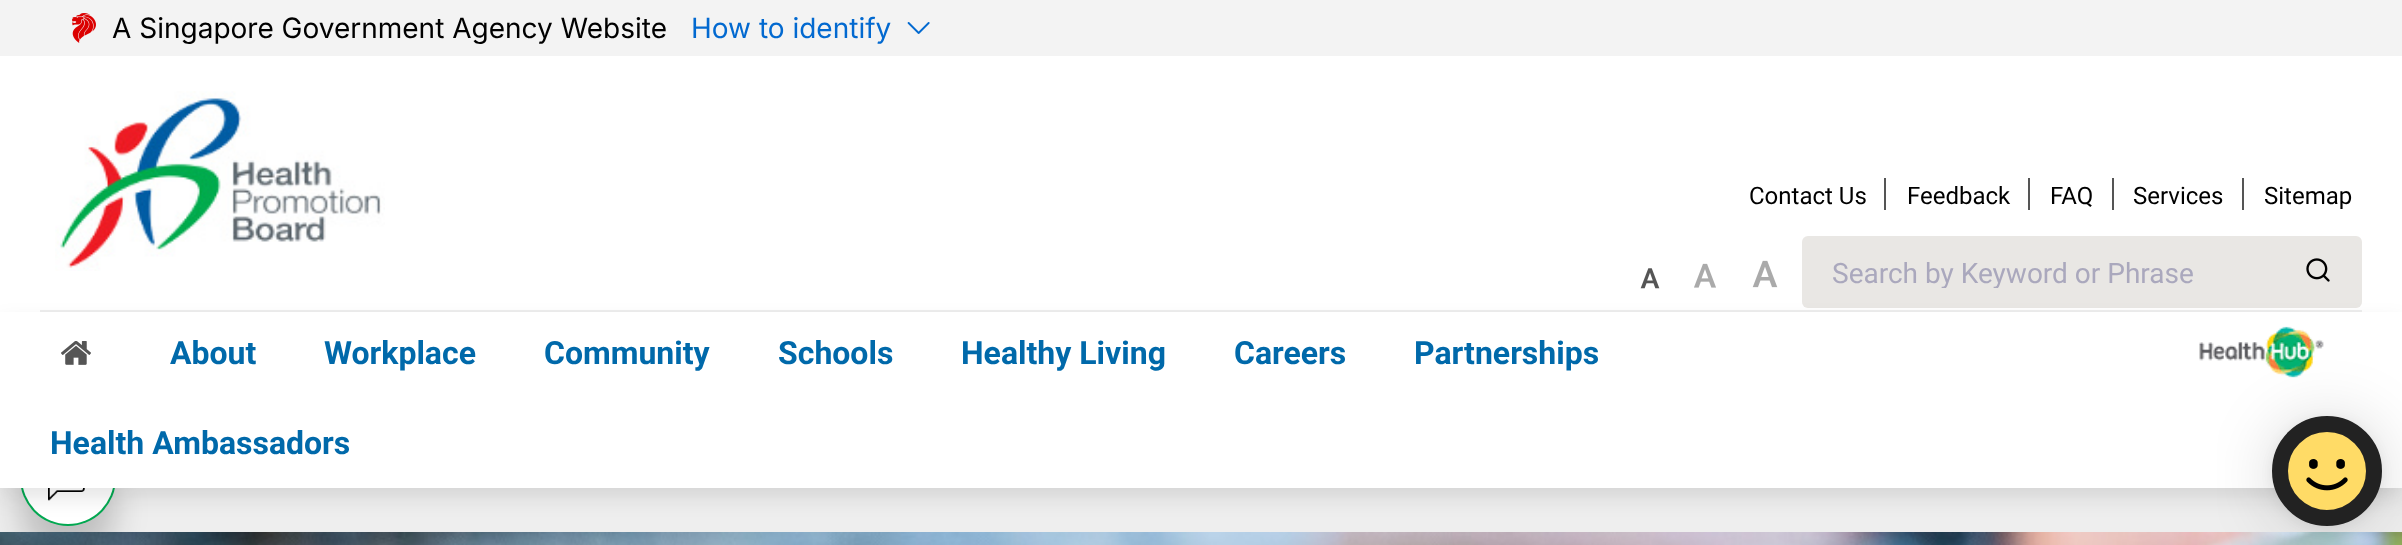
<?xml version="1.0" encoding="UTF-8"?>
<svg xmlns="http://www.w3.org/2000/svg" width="2402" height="545">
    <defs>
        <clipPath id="clip1"><rect x="1832" y="256" width="450" height="32"/></clipPath>
        <filter id="blur1" x="-50%" y="-200%" width="200%" height="500%"><feGaussianBlur stdDeviation="16"/></filter>
        <filter id="blur2" x="-50%" y="-200%" width="200%" height="500%"><feGaussianBlur stdDeviation="10"/></filter>
        <filter id="blur3" x="-50%" y="-200%" width="200%" height="500%"><feGaussianBlur stdDeviation="32"/></filter>
        <filter id="blur4" x="-50%" y="-200%" width="200%" height="500%"><feGaussianBlur stdDeviation="6"/></filter>
    </defs>
    <rect width="100%" height="100%" fill="#FFFFFF"/>
    <rect x="0" y="0" width="2402" height="56" fill="#F3F3F3"/>
    <image x="72" y="13" width="24" height="30" href="img_01.png"/>
    <text x="112" y="38" font-family="Inter" font-size="28" fill="#000000">A Singapore Government Agency Website</text>
    <text x="691" y="38" font-family="Inter" font-size="28" fill="#0269D0">How to identify</text>
    <image x="907" y="22" width="23" height="12" href="img_02.png"/>
    <rect x="40" y="310" width="2322" height="2" fill="#EEEEEE"/>
    <image x="55" y="91" width="330" height="180" href="img_03.png"/>
    <text x="1749" y="204" font-family="Roboto" font-size="24" fill="#000000">Contact Us</text>
    <rect x="1884" y="178" width="2" height="32" fill="#555555"/>
    <text x="1907" y="204" font-family="Roboto" font-size="24" fill="#000000">Feedback</text>
    <rect x="2028" y="178" width="2" height="32" fill="#555555"/>
    <text x="2050" y="204" font-family="Roboto" font-size="24" fill="#000000">FAQ</text>
    <rect x="2112" y="178" width="2" height="32" fill="#555555"/>
    <text x="2133" y="204" font-family="Roboto" font-size="24" fill="#000000">Services</text>
    <rect x="2242" y="178" width="2" height="32" fill="#555555"/>
    <text x="2264" y="204" font-family="Roboto" font-size="24" fill="#000000">Sitemap</text>
    <image x="1640" y="268" width="20" height="21" href="img_04.png"/>
    <image x="1694" y="263" width="22" height="25" href="img_05.png"/>
    <image x="1752" y="260" width="26" height="28" href="img_06.png"/>
    <rect x="1802" y="236" width="560" height="72" rx="6" fill="#E9E7E4"/>
    <g clip-path="url(#clip1)">
        <text x="1832" y="283" font-family="Roboto" font-size="28" fill="#AAA8BD">Search by Keyword or Phrase</text>
    </g>
    <image x="2306" y="258" width="24" height="24" href="img_07.png"/>
    <rect x="0" y="488" width="2402" height="44" fill="#EEEEEE"/>
    <image x="0" y="532" width="2402" height="13" href="img_11.png"/>
    <rect x="20" y="462" width="96" height="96" rx="48" fill="#191919" fill-opacity="0.2" filter="url(#blur1)"/>
    <circle cx="68" cy="478" r="48" fill="#01A850"/>
    <circle cx="68" cy="478" r="46" fill="#FFFFFF"/>
    <image x="48" y="488" width="37" height="13" href="img_10.png"/>
    <rect x="0" y="322" width="2402" height="176" fill="#000000" fill-opacity="0.1" filter="url(#blur2)"/>
    <rect x="0" y="312" width="2402" height="176" fill="#FFFFFF"/>
    <image x="61" y="341" width="30" height="24" href="img_08.png"/>
    <text x="170" y="364" font-family="Roboto" font-size="32" font-weight="700" fill="#0069AA">About</text>
    <text x="324" y="364" font-family="Roboto" font-size="32" font-weight="700" fill="#0069AA">Workplace</text>
    <text x="544" y="364" font-family="Roboto" font-size="32" font-weight="700" fill="#0069AA">Community</text>
    <text x="778" y="364" font-family="Roboto" font-size="32" font-weight="700" fill="#0069AA">Schools</text>
    <text x="961" y="364" font-family="Roboto" font-size="32" font-weight="700" fill="#0069AA">Healthy Living</text>
    <text x="1234" y="364" font-family="Roboto" font-size="32" font-weight="700" fill="#0069AA">Careers</text>
    <text x="1414" y="364" font-family="Roboto" font-size="32" font-weight="700" fill="#0069AA">Partnerships</text>
    <text x="50" y="454" font-family="Roboto" font-size="32" font-weight="700" fill="#0069AA">Health Ambassadors</text>
    <image x="2199" y="326" width="125" height="52" href="img_09.png"/>
    <rect x="2272" y="420" width="110" height="110" rx="55" fill="#000000" fill-opacity="0.16" filter="url(#blur3)"/>
    <rect x="2272" y="418" width="110" height="110" rx="55" fill="#000000" fill-opacity="0.06" filter="url(#blur4)"/>
    <circle cx="2327" cy="471" r="47" fill="#FFDB66" stroke="#222222" stroke-width="16"/>
    <image x="2306" y="459" width="42" height="32" href="img_12.png"/>
</svg>
